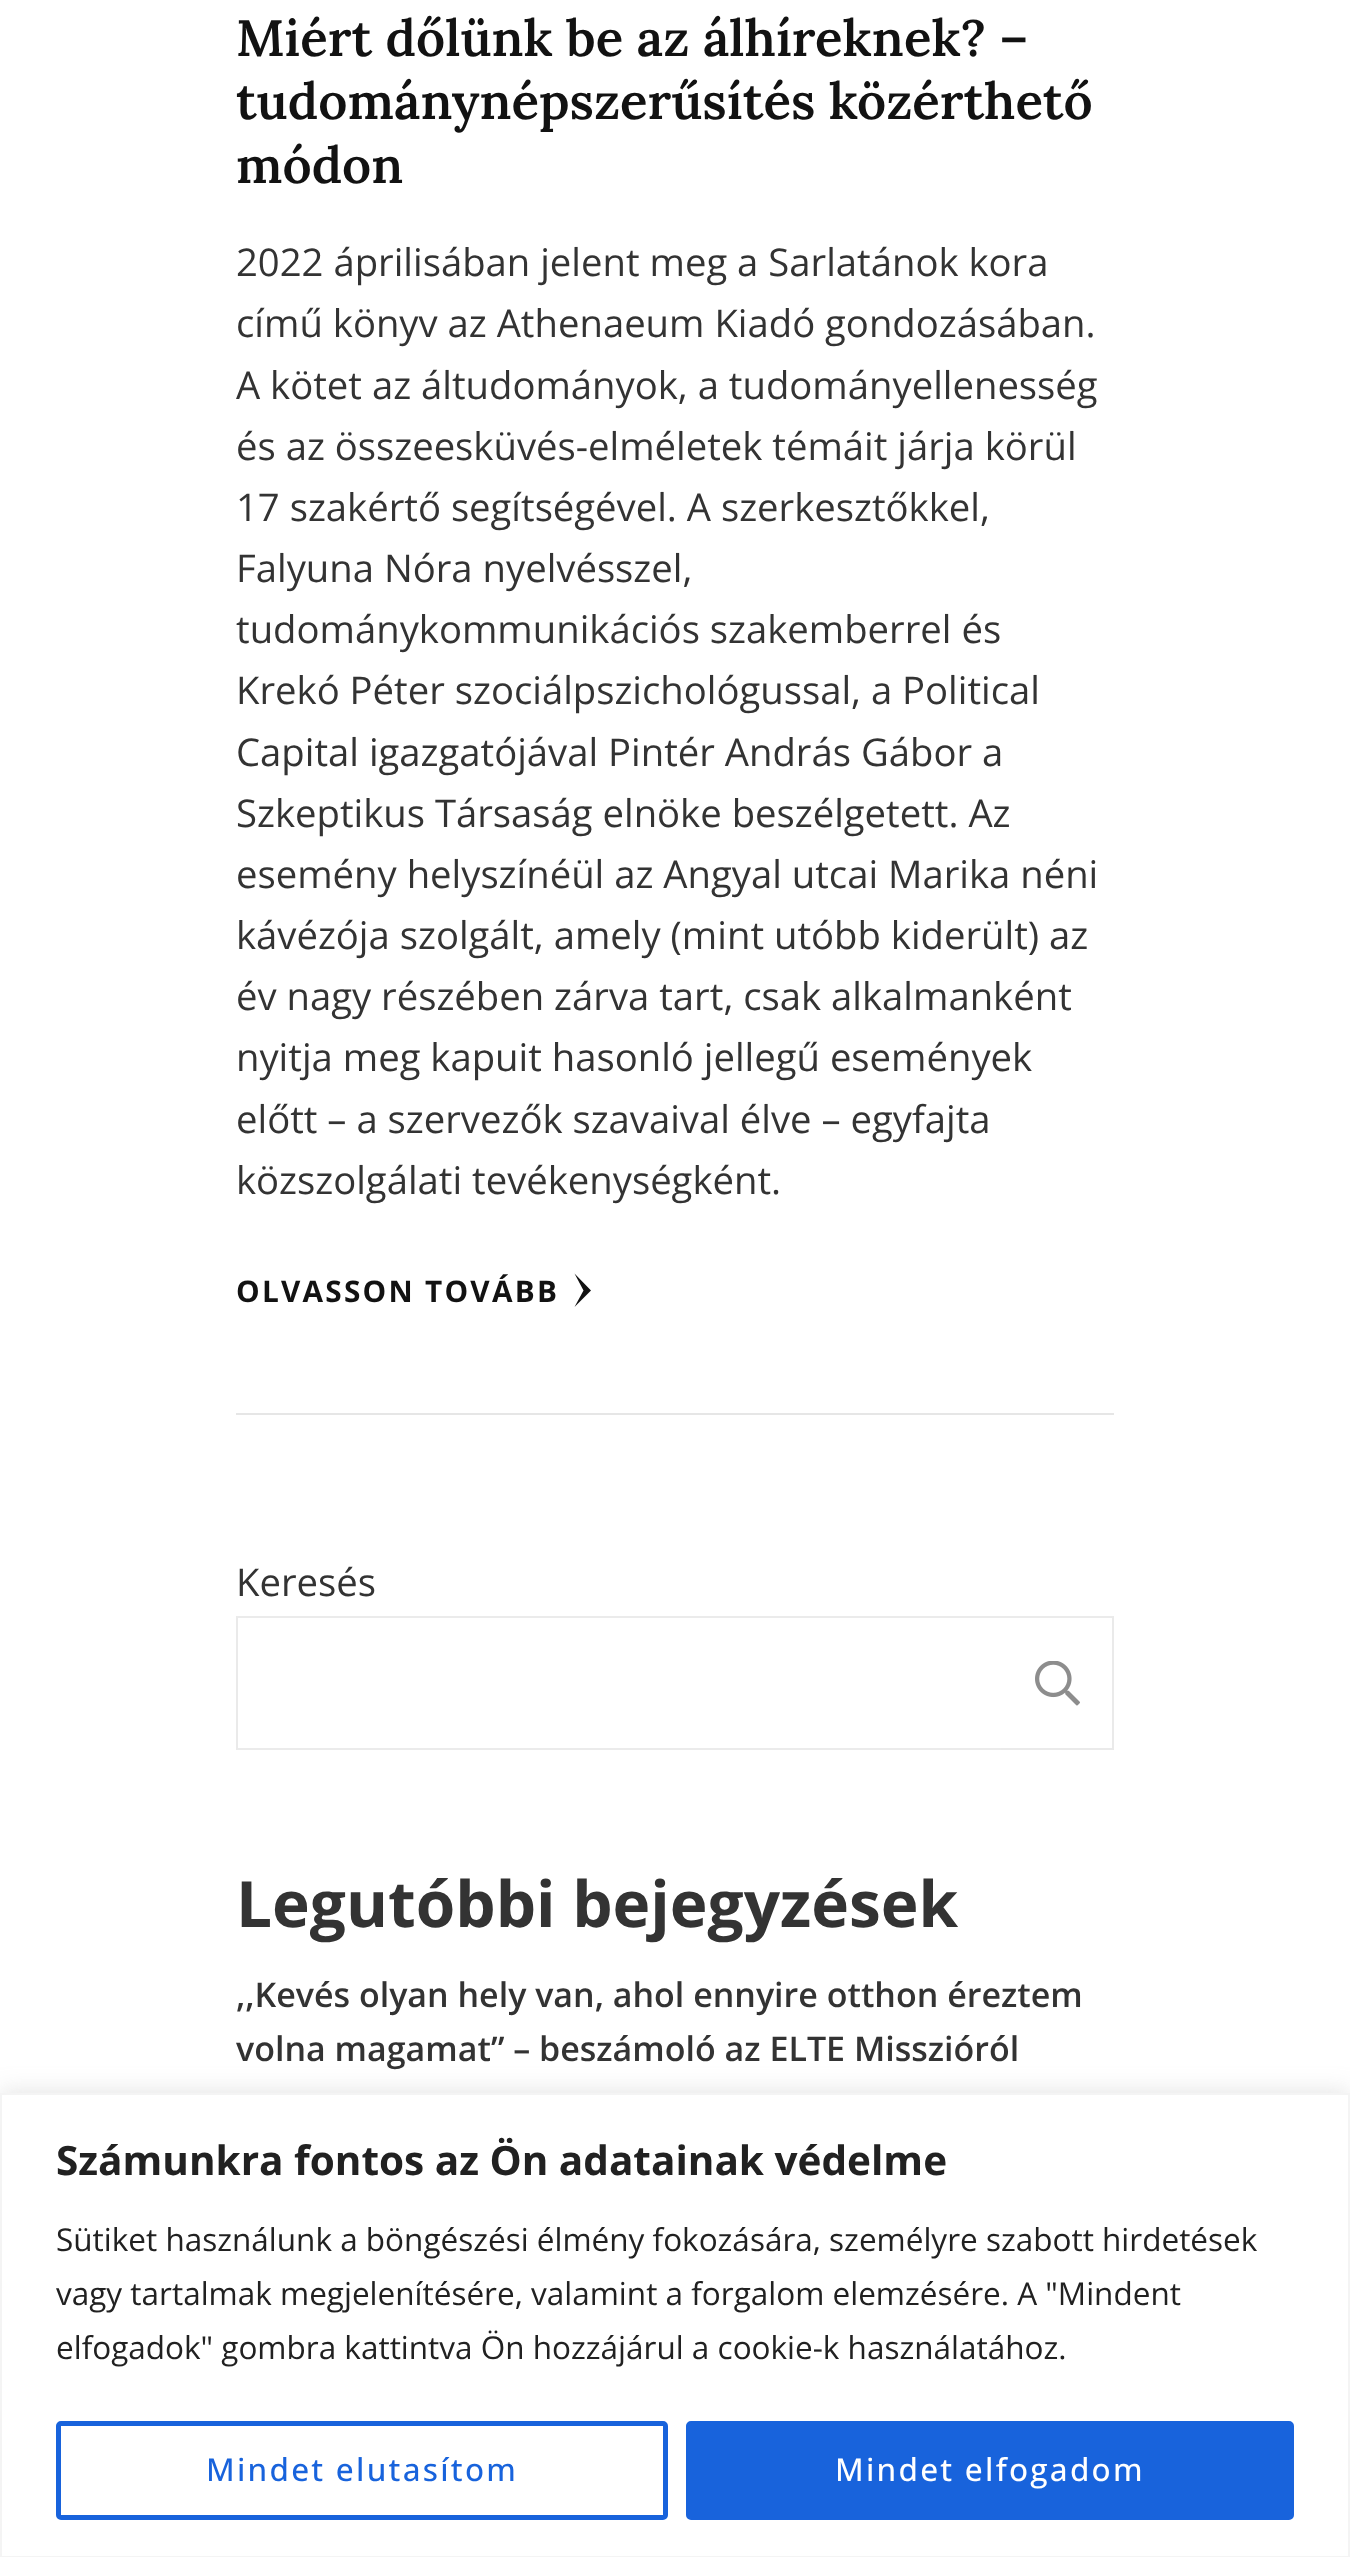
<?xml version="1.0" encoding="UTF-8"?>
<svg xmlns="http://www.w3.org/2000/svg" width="1350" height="2557">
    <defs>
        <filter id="blur1" x="-50%" y="-200%" width="200%" height="500%"><feGaussianBlur stdDeviation="11"/></filter>
    </defs>
    <rect width="100%" height="100%" fill="#FFFFFF"/>
    <rect x="236" y="1413" width="878" height="2" fill="#E6E6E6"/>
    <text font-family="Lora" font-size="51" font-weight="600" fill="#121212">
        <tspan x="236" y="56">Miért dőlünk be az álhíreknek? –</tspan>
        <tspan x="236" y="119">tudománynépszerűsítés közérthető</tspan>
        <tspan x="236" y="183">módon</tspan>
    </text>
    <text font-family="Open Sans" font-size="38.25" fill="#333333">
        <tspan x="236" y="276">2022 áprilisában jelent meg a Sarlatánok kora</tspan>
        <tspan x="236" y="337">című könyv az Athenaeum Kiadó gondozásában.</tspan>
        <tspan x="236" y="399">A kötet az áltudományok, a tudományellenesség</tspan>
        <tspan x="236" y="460">és az összeesküvés-elméletek témáit járja körül</tspan>
        <tspan x="236" y="521">17 szakértő segítségével. A szerkesztőkkel,</tspan>
        <tspan x="236" y="582">Falyuna Nóra nyelvésszel,</tspan>
        <tspan x="236" y="643">tudománykommunikációs szakemberrel és</tspan>
        <tspan x="236" y="704">Krekó Péter szociálpszichológussal, a Political</tspan>
        <tspan x="236" y="766">Capital igazgatójával Pintér András Gábor a</tspan>
        <tspan x="236" y="827">Szkeptikus Társaság elnöke beszélgetett. Az</tspan>
        <tspan x="236" y="888">esemény helyszínéül az Angyal utcai Marika néni</tspan>
        <tspan x="236" y="949">kávézója szolgált, amely (mint utóbb kiderült) az</tspan>
        <tspan x="236" y="1010">év nagy részében zárva tart, csak alkalmanként</tspan>
        <tspan x="236" y="1071">nyitja meg kapuit hasonló jellegű események</tspan>
        <tspan x="236" y="1133">előtt – a szervezők szavaival élve – egyfajta</tspan>
        <tspan x="236" y="1194">közszolgálati tevékenységként.</tspan>
    </text>
    <text x="236" y="1302" font-family="Open Sans" font-size="29.75" font-weight="700" letter-spacing="2.25" fill="#121212">OLVASSON TOVÁBB</text>
    <path d="M 591 1290.5 L 574.5 1307 L 583.5 1290.5 L 574.5 1273.5 Z" fill="#121212"/>
    <text x="236" y="1596" font-family="Open Sans" font-size="38.25" fill="#333333">Keresés</text>
    <path d="M 236 1616 H 1001 V 1618 H 238 Z" fill="#EBEBEB"/>
    <path d="M 1001 1750 H 236 L 238 1748 H 1001 Z" fill="#EBEBEB"/>
    <path d="M 236 1750 V 1616 L 238 1618 V 1748 Z" fill="#333333" fill-opacity="0.1"/>
    <path d="M 1001 1616 H 1114 L 1112 1618 H 1001 Z" fill="#EBEBEB"/>
    <path d="M 1114 1616 V 1750 L 1112 1748 V 1618 Z" fill="#333333" fill-opacity="0.1"/>
    <path d="M 1114 1750 H 1001 V 1748 H 1112 Z" fill="#333333" fill-opacity="0.1"/>
    <image x="1035" y="1661" width="45" height="45" href="img_01.png"/>
    <text x="236" y="1927" font-family="Open Sans" font-size="63.9" font-weight="700" fill="#333333">Legutóbbi bejegyzések</text>
    <text font-family="Open Sans" font-size="34" font-weight="600" fill="#333333">
        <tspan x="236" y="2007">,,Kevés olyan hely van, ahol ennyire otthon éreztem</tspan>
        <tspan x="236" y="2061">volna magamat” – beszámoló az ELTE Misszióról</tspan>
    </text>
    <rect x="0" y="2090" width="1350" height="466" fill="#ACABAB" fill-opacity="0.3" filter="url(#blur1)"/>
    <rect x="1" y="2094" width="1348" height="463" fill="#FFFFFF" stroke="#F4F4F4" stroke-width="2"/>
    <text x="56" y="2175" font-family="Open Sans" font-size="40.5" font-weight="700" fill="#212121">Számunkra fontos az Ön adatainak védelme</text>
    <text font-family="Open Sans" font-size="31.5" fill="#212121">
        <tspan x="56" y="2251">Sütiket használunk a böngészési élmény fokozására, személyre szabott hirdetések</tspan>
        <tspan x="56" y="2305">vagy tartalmak megjelenítésére, valamint a forgalom elemzésére. A "Mindent</tspan>
        <tspan x="56" y="2359">elfogadok" gombra kattintva Ön hozzájárul a cookie-k használatához.</tspan>
    </text>
    <rect x="58.5" y="2423.5" width="607" height="94" rx="2.5" fill="none" stroke="#1863DC" stroke-width="5"/>
    <text x="206" y="2481" font-family="Open Sans" font-size="31.5" font-weight="500" letter-spacing="2.25" fill="#1863DC">Mindet elutasítom</text>
    <rect x="688.5" y="2423.5" width="603" height="94" rx="2.5" fill="#1863DC" stroke="#1863DC" stroke-width="5"/>
    <text x="835" y="2481" font-family="Open Sans" font-size="31.5" font-weight="500" letter-spacing="2.25" fill="#FFFFFF">Mindet elfogadom</text>
</svg>
